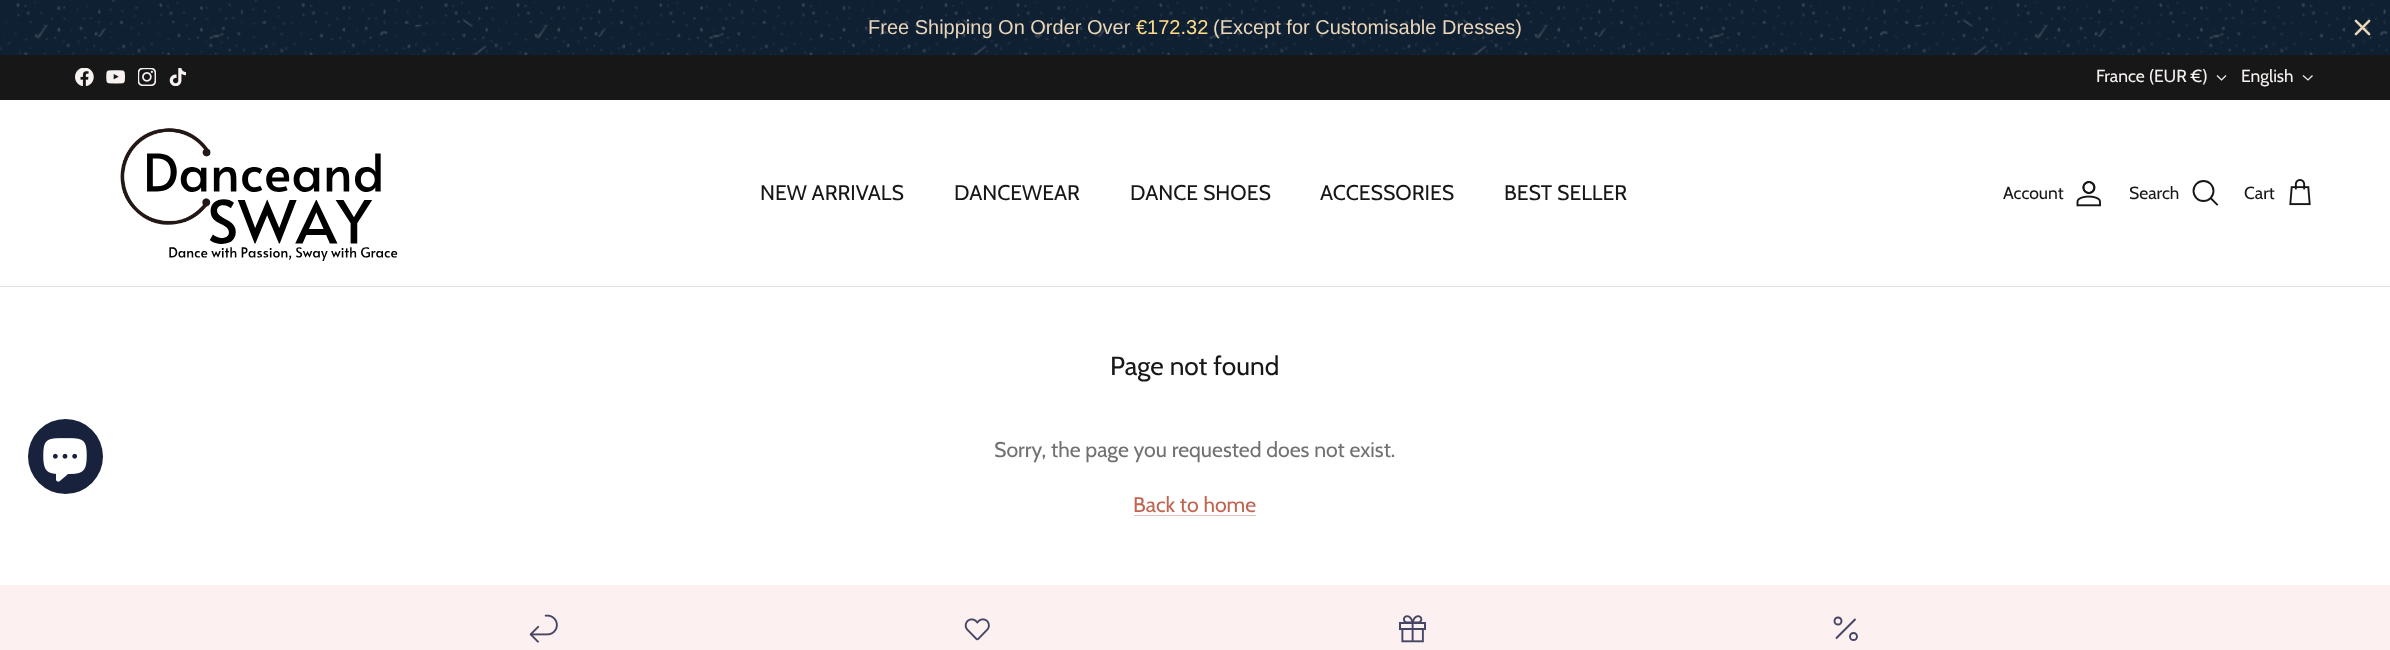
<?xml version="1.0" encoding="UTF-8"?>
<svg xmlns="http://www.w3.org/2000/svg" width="2390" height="650">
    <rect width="100%" height="100%" fill="#FFFFFF"/>
    <image x="0" y="0" width="2390" height="55" href="img_01.png"/>
    <text x="868" y="34" font-family="Liberation Sans" font-size="20" fill="#EAD7BA">Free Shipping On Order Over</text>
    <text x="1136" y="34" font-family="Liberation Sans" font-size="20" fill="#FFDD88">€172.32</text>
    <text x="1213" y="34" font-family="Liberation Sans" font-size="20" fill="#EAD7BA">(Except for Customisable Dresses)</text>
    <image x="2354" y="19" width="17" height="17" href="img_02.png"/>
    <rect x="0" y="55" width="2390" height="45" fill="#171717"/>
    <image x="75" y="68" width="19" height="18" href="img_03.png"/>
    <image x="106" y="70" width="19" height="14" href="img_04.png"/>
    <image x="138" y="68" width="18" height="18" href="img_05.png"/>
    <image x="169" y="68" width="17" height="18" href="img_06.png"/>
    <text x="2096" y="82" font-family="Cabin" font-size="17.5" fill="#F7F1F0">France (EUR €)</text>
    <path d="M 2226 75.5 L 2221.5 80 L 2217 75.5" fill="none" stroke="#F7F1F0" stroke-width="1.2"/>
    <text x="2241" y="82" font-family="Cabin" font-size="17.5" fill="#F7F1F0">English</text>
    <path d="M 2312.5 75.5 L 2308 80 L 2303 75.5" fill="none" stroke="#F7F1F0" stroke-width="1.2"/>
    <rect x="0" y="286" width="2390" height="1" fill="#DFE3E8"/>
    <image x="120" y="128" width="278" height="133" href="img_07.png"/>
    <text x="760" y="200" font-family="Cabin" font-size="21.25" fill="#171717">NEW ARRIVALS</text>
    <text x="954" y="200" font-family="Cabin" font-size="21.25" fill="#171717">DANCEWEAR</text>
    <text x="1130" y="200" font-family="Cabin" font-size="21.25" fill="#171717">DANCE SHOES</text>
    <text x="1320" y="200" font-family="Cabin" font-size="21.25" fill="#171717">ACCESSORIES</text>
    <text x="1504" y="200" font-family="Cabin" font-size="21.25" fill="#171717">BEST SELLER</text>
    <text x="2003" y="199" font-family="Cabin" font-size="17.5" fill="#171717">Account</text>
    <image x="2076" y="181" width="25" height="26" href="img_08.png"/>
    <text x="2129" y="199" font-family="Cabin" font-size="17.5" fill="#171717">Search</text>
    <circle cx="2203.5" cy="191" r="10" fill="none" stroke="#171717" stroke-width="1.9"/>
    <path d="M 2211 198.5 L 2217 204.5" fill="none" stroke="#171717" stroke-width="1.9" stroke-linecap="square"/>
    <text x="2244" y="199" font-family="Cabin" font-size="17.5" fill="#171717">Cart</text>
    <image x="2289" y="179" width="22" height="27" href="img_09.png"/>
    <circle cx="65.5" cy="456.5" r="37.5" fill="#18223C"/>
    <image x="43" y="438" width="44" height="44" href="img_10.png"/>
    <text x="1110" y="375" font-family="Cabin" font-size="26.25" fill="#171717">Page not found</text>
    <text x="994" y="457" font-family="Cabin" font-size="21.25" fill="#707173">Sorry, the page you requested does not exist.</text>
    <text x="1133" y="512" font-family="Cabin" font-size="21.25" fill="#C16452">Back to home</text>
    <rect x="1134" y="515" width="122" height="1" fill="#E6C1BA"/>
    <rect x="0" y="585" width="2390" height="65" fill="#FCF0F0"/>
    <image x="529" y="614" width="29" height="29" href="img_11.png"/>
    <image x="964" y="618" width="26" height="23" href="img_12.png"/>
    <image x="1399" y="615" width="27" height="28" href="img_13.png"/>
    <path d="M 1855.5 619 L 1836 638.5" fill="none" stroke="#454564" stroke-width="1.9"/>
    <circle cx="1838" cy="621" r="3.5" fill="none" stroke="#454564" stroke-width="1.9"/>
    <circle cx="1853.5" cy="636.5" r="3.5" fill="none" stroke="#454564" stroke-width="1.9"/>
</svg>
